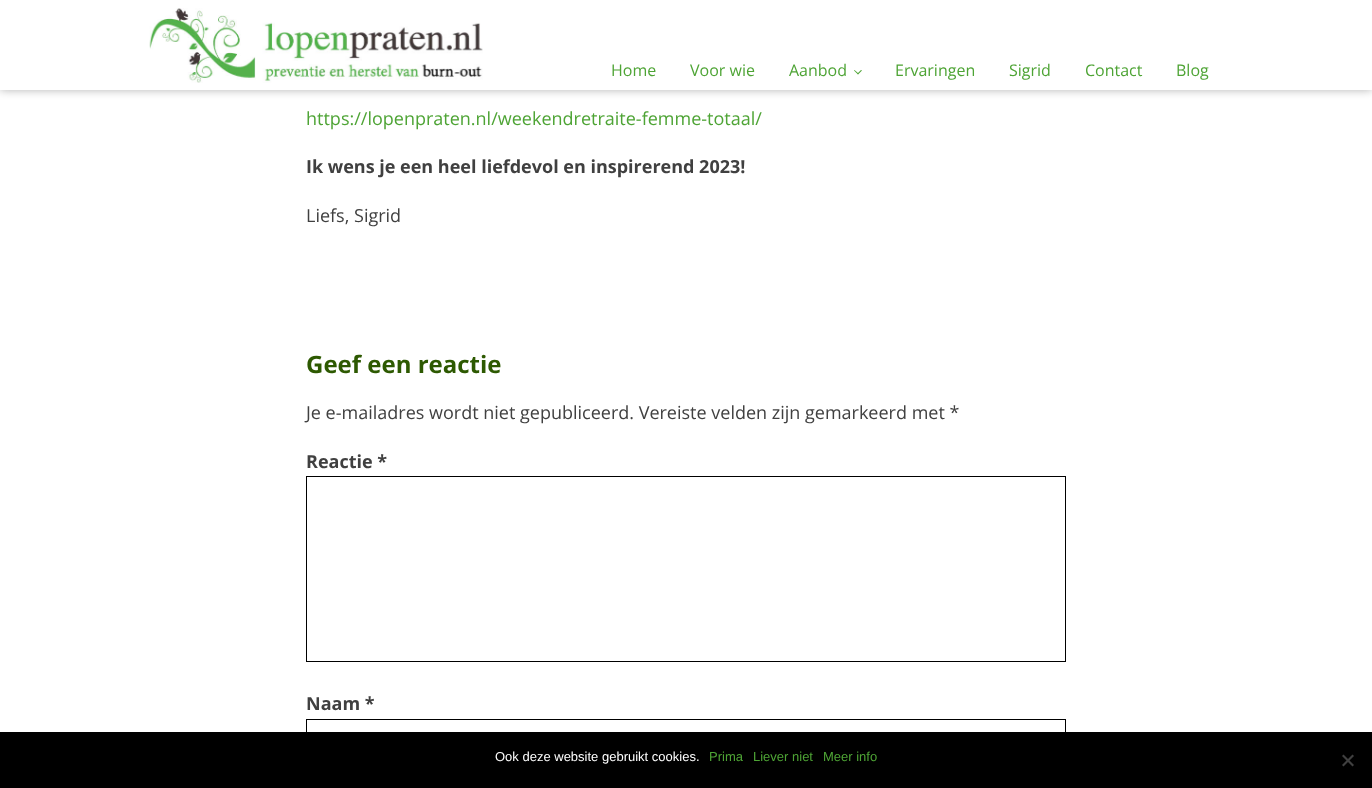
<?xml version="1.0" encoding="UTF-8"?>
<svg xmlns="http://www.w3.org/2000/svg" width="1372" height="788">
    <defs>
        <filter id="blur1" x="-50%" y="-200%" width="200%" height="500%"><feGaussianBlur stdDeviation="5"/></filter>
    </defs>
    <rect width="100%" height="100%" fill="#FFFFFF"/>
    <rect x="0" y="0" width="1372" height="90" fill="#000000" fill-opacity="0.3" filter="url(#blur1)"/>
    <rect x="0" y="0" width="1372" height="90" fill="#FFFFFF"/>
    <image x="149" y="8" width="334" height="75" href="img_01.png"/>
    <text x="611" y="76" font-family="Open Sans" font-size="16" fill="#4EA435">Home</text>
    <text x="690" y="76" font-family="Open Sans" font-size="16" fill="#4EA435">Voor wie</text>
    <text x="789" y="76" font-family="Open Sans" font-size="16" fill="#4EA435">Aanbod</text>
    <path d="M 862 70.5 L 858 74.5 L 857.5 73.5 L 861 70 Z" fill="#4EA435"/>
    <path d="M 858.5 73.5 L 858 74.5 L 854 70.5 L 854.5 70 Z" fill="#4EA435"/>
    <text x="895" y="76" font-family="Open Sans" font-size="16" fill="#4EA435">Ervaringen</text>
    <text x="1009" y="76" font-family="Open Sans" font-size="16" fill="#4EA435">Sigrid</text>
    <text x="1085" y="76" font-family="Open Sans" font-size="16" fill="#4EA435">Contact</text>
    <text x="1176" y="76" font-family="Open Sans" font-size="16" fill="#4EA435">Blog</text>
    <text x="306" y="125" font-family="Open Sans" font-size="18" fill="#4EA435">https://lopenpraten.nl/weekendretraite-femme-totaal/</text>
    <text x="306" y="173" font-family="Open Sans" font-size="18" font-weight="700" fill="#404040">Ik wens je een heel liefdevol en inspirerend 2023!</text>
    <text x="306" y="222" font-family="Open Sans" font-size="18" fill="#404040">Liefs, Sigrid</text>
    <text x="306" y="373" font-family="Open Sans" font-size="24" font-weight="700" fill="#2D5901">Geef een reactie</text>
    <text x="306" y="419" font-family="Open Sans" font-size="18" fill="#404040">Je e-mailadres wordt niet gepubliceerd. Vereiste velden zijn gemarkeerd met *</text>
    <text x="306" y="468" font-family="Open Sans" font-size="18" font-weight="700" fill="#404040">Reactie *</text>
    <rect x="306.5" y="476.5" width="759" height="185" fill="none" stroke="#000000"/>
    <text x="306" y="710" font-family="Open Sans" font-size="18" font-weight="700" fill="#404040">Naam *</text>
    <rect x="306.5" y="719.5" width="759" height="40" fill="none" stroke="#000000"/>
    <rect x="0" y="732" width="1372" height="56" fill="#000000"/>
    <text x="495" y="761" font-family="Liberation Sans" font-size="13" fill="#FFFFFF">Ook deze website gebruikt cookies.</text>
    <text x="709" y="761" font-family="Liberation Sans" font-size="13" fill="#4EA435">Prima</text>
    <text x="753" y="761" font-family="Liberation Sans" font-size="13" fill="#4EA435">Liever niet</text>
    <text x="823" y="761" font-family="Liberation Sans" font-size="13" fill="#4EA435">Meer info</text>
    <path d="M 1352.5 754.5 L 1354 756 L 1343.5 766.5 L 1342 765 Z" fill="#404040"/>
    <path d="M 1342 756 L 1343.5 754.5 L 1354 765 L 1352.5 766.5 Z" fill="#404040"/>
</svg>
